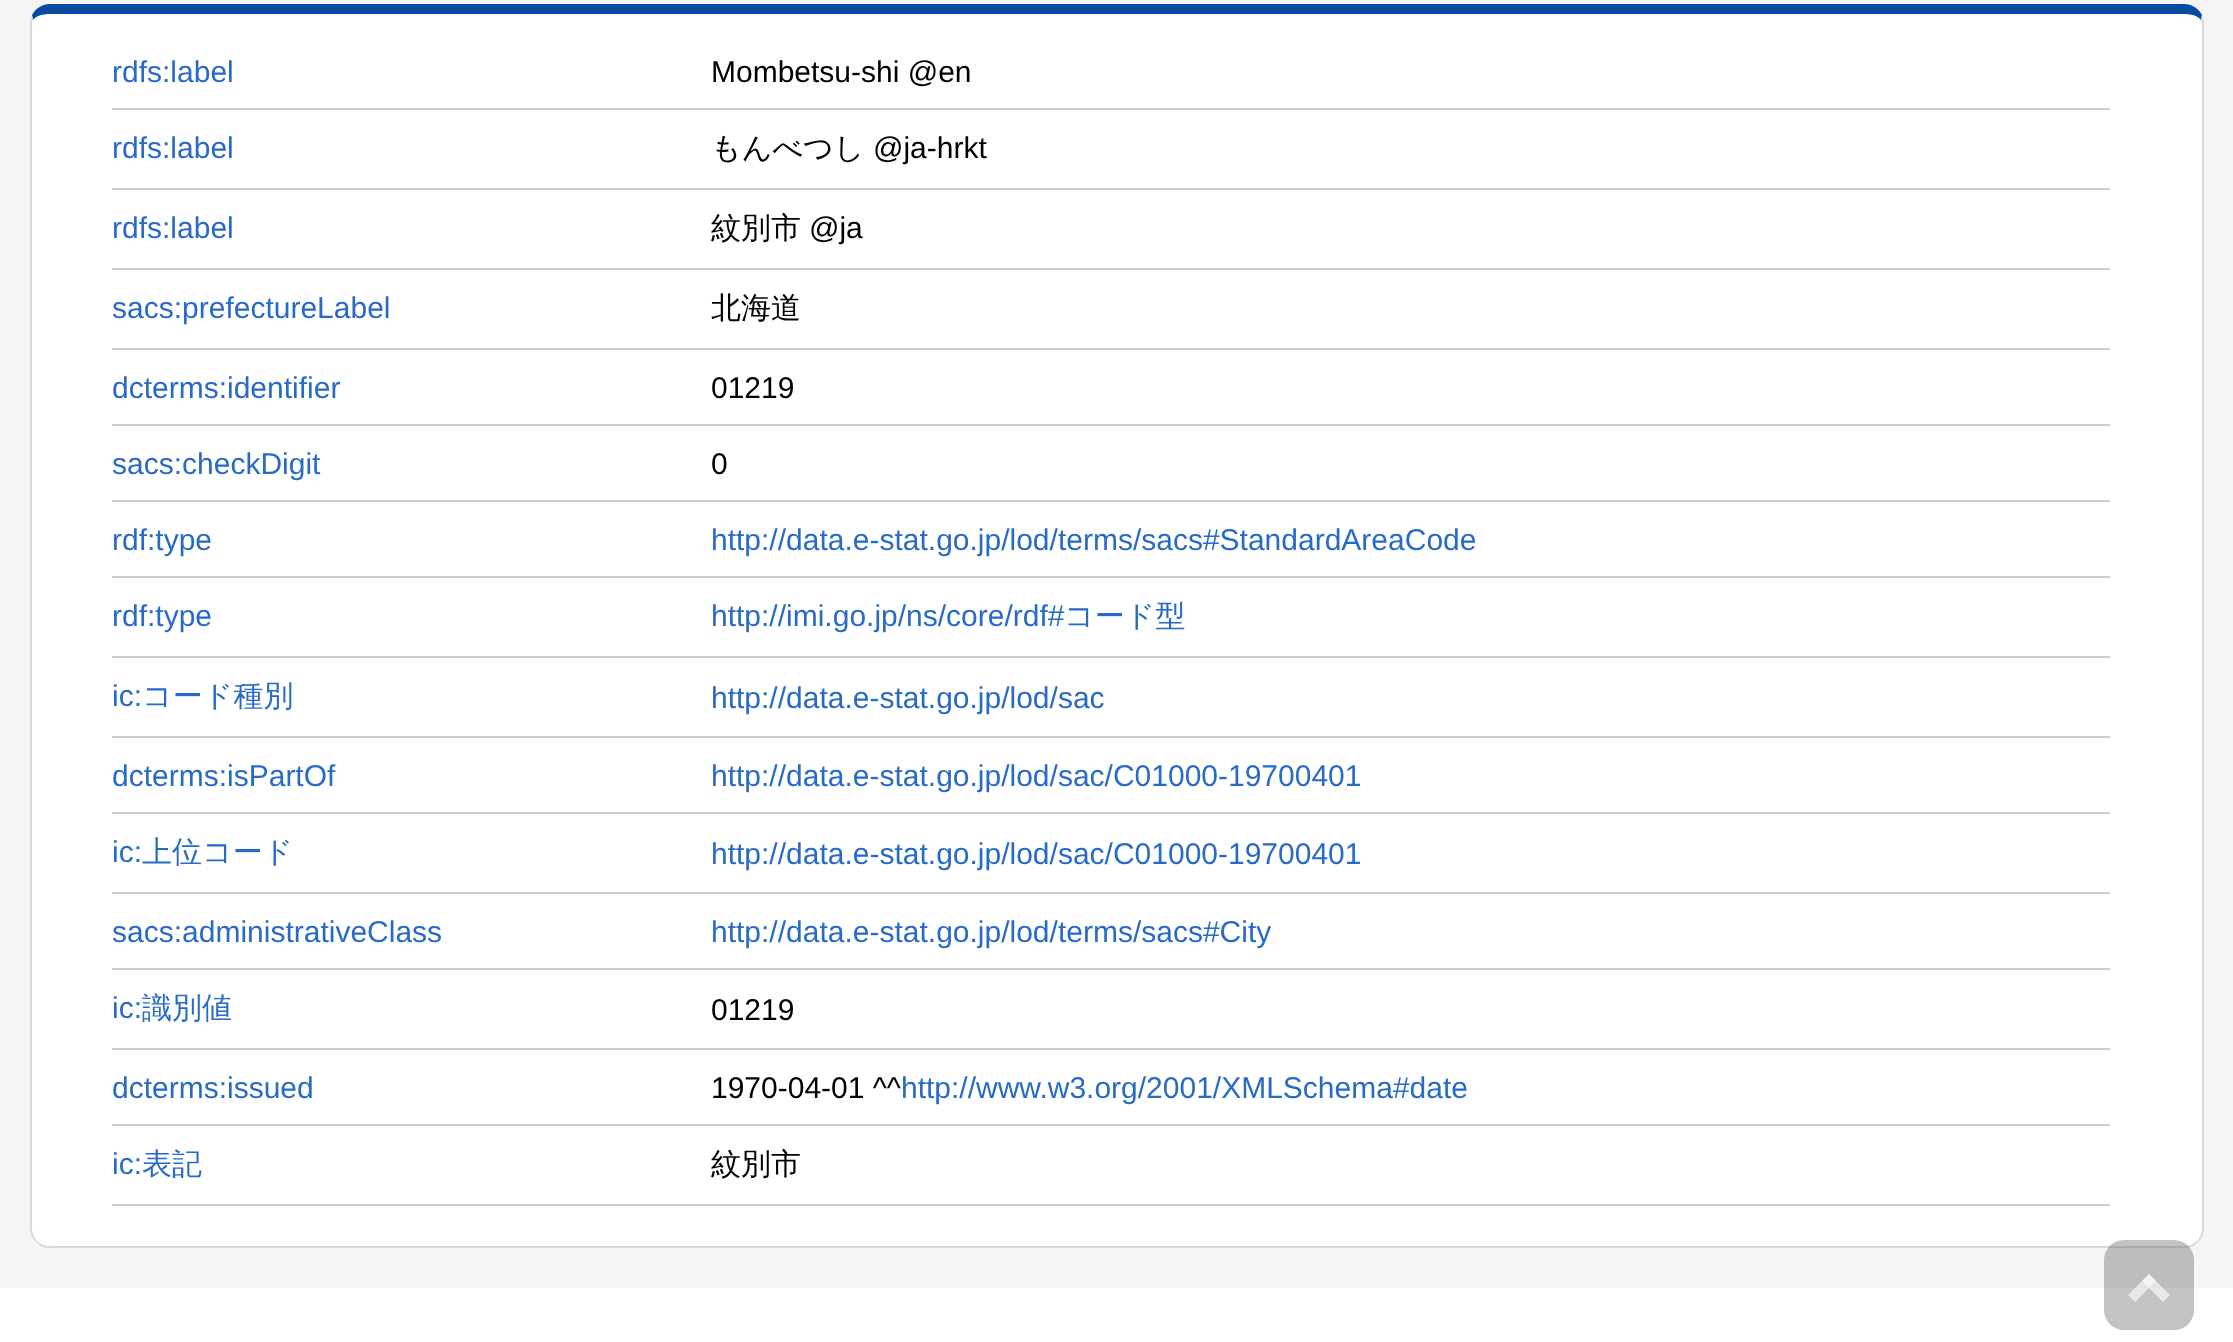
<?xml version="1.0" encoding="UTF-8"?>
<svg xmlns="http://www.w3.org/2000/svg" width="2233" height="1342">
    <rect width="100%" height="100%" fill="#F5F5F5"/>
    <path d="M 50 14 H 2184 C 2194 14 2202 18 2202 24 V 1228 C 2202 1238 2194 1246 2184 1246 H 50 C 40 1246 32 1238 32 1228 V 24 C 32 18 40 14 50 14 Z" fill="#FFFFFF"/>
    <path d="M 50 4 C 42 4 36 8 32 15 L 33 20 C 36 16 42 14 50 14 H 2184 C 2192 14 2198 16 2201 20 L 2202 15 C 2198 8 2192 4 2184 4 Z" fill="#084BA2"/>
    <path d="M 2204 1228 V 24 C 2204 21 2203 18 2202 15 L 2201 20 C 2202 21 2202 23 2202 24 V 1228 C 2202 1233 2200 1238 2197 1241 L 2198 1242 C 2202 1238 2204 1234 2204 1228 Z" fill="#DADADA"/>
    <path d="M 50 1248 H 2184 C 2190 1248 2194 1246 2198 1242 L 2197 1241 C 2194 1244 2189 1246 2184 1246 H 50 C 45 1246 40 1244 37 1241 L 36 1242 C 40 1246 44 1248 50 1248 Z" fill="#DADADA"/>
    <path d="M 30 24 V 1228 C 30 1234 32 1238 36 1242 L 37 1241 C 34 1238 32 1233 32 1228 V 24 C 32 23 32 21 33 20 L 32 15 C 31 18 30 21 30 24 Z" fill="#DADADA"/>
    <text x="112" y="82" font-family="Liberation Sans" font-size="30" fill="#286BC6">rdfs:label</text>
    <rect x="112" y="108" width="1998" height="2" fill="#CFCFCF"/>
    <text x="711" y="82" font-family="Liberation Sans" font-size="30" fill="#000000">Mombetsu-shi @en</text>
    <text x="112" y="158" font-family="Liberation Sans" font-size="30" fill="#286BC6">rdfs:label</text>
    <rect x="112" y="188" width="1998" height="2" fill="#CFCFCF"/>
    <text x="711" y="158" font-family="WenQuanYi Zen Hei" font-size="30" font-weight="500" fill="#000000">もんべつし</text>
    <text x="873" y="158" font-family="Liberation Sans" font-size="30" fill="#000000">@ja-hrkt</text>
    <text x="112" y="238" font-family="Liberation Sans" font-size="30" fill="#286BC6">rdfs:label</text>
    <rect x="112" y="268" width="1998" height="2" fill="#CFCFCF"/>
    <text x="711" y="238" font-family="WenQuanYi Zen Hei" font-size="30" font-weight="500" fill="#000000">紋別市</text>
    <text x="809" y="238" font-family="Liberation Sans" font-size="30" fill="#000000">@ja</text>
    <text x="112" y="318" font-family="Liberation Sans" font-size="30" fill="#286BC6">sacs:prefectureLabel</text>
    <rect x="112" y="348" width="1998" height="2" fill="#CFCFCF"/>
    <text x="711" y="318" font-family="WenQuanYi Zen Hei" font-size="30" font-weight="500" fill="#000000">北海道</text>
    <text x="112" y="398" font-family="Liberation Sans" font-size="30" fill="#286BC6">dcterms:identifier</text>
    <rect x="112" y="424" width="1998" height="2" fill="#CFCFCF"/>
    <text x="711" y="398" font-family="Liberation Sans" font-size="30" fill="#000000">01219</text>
    <text x="112" y="474" font-family="Liberation Sans" font-size="30" fill="#286BC6">sacs:checkDigit</text>
    <rect x="112" y="500" width="1998" height="2" fill="#CFCFCF"/>
    <text x="711" y="474" font-family="Liberation Sans" font-size="30" fill="#000000">0</text>
    <text x="112" y="550" font-family="Liberation Sans" font-size="30" fill="#286BC6">rdf:type</text>
    <rect x="112" y="576" width="1998" height="2" fill="#CFCFCF"/>
    <text x="711" y="550" font-family="Liberation Sans" font-size="30" fill="#286BC6">http://data.e-stat.go.jp/lod/terms/sacs#StandardAreaCode</text>
    <text x="112" y="626" font-family="Liberation Sans" font-size="30" fill="#286BC6">rdf:type</text>
    <rect x="112" y="656" width="1998" height="2" fill="#CFCFCF"/>
    <text x="711" y="626" font-family="Liberation Sans" font-size="30" fill="#286BC6">http://imi.go.jp/ns/core/rdf#</text>
    <text x="1064" y="626" font-family="WenQuanYi Zen Hei" font-size="30" font-weight="500" fill="#286BC6">コード型</text>
    <text x="112" y="706" font-family="Liberation Sans" font-size="30" fill="#286BC6">ic:</text>
    <text x="142" y="706" font-family="WenQuanYi Zen Hei" font-size="30" font-weight="500" fill="#286BC6">コード種別</text>
    <rect x="112" y="736" width="1998" height="2" fill="#CFCFCF"/>
    <text x="711" y="708" font-family="Liberation Sans" font-size="30" fill="#286BC6">http://data.e-stat.go.jp/lod/sac</text>
    <text x="112" y="786" font-family="Liberation Sans" font-size="30" fill="#286BC6">dcterms:isPartOf</text>
    <rect x="112" y="812" width="1998" height="2" fill="#CFCFCF"/>
    <text x="711" y="786" font-family="Liberation Sans" font-size="30" fill="#286BC6">http://data.e-stat.go.jp/lod/sac/C01000-19700401</text>
    <text x="112" y="862" font-family="Liberation Sans" font-size="30" fill="#286BC6">ic:</text>
    <text x="142" y="862" font-family="WenQuanYi Zen Hei" font-size="30" font-weight="500" fill="#286BC6">上位コード</text>
    <rect x="112" y="892" width="1998" height="2" fill="#CFCFCF"/>
    <text x="711" y="864" font-family="Liberation Sans" font-size="30" fill="#286BC6">http://data.e-stat.go.jp/lod/sac/C01000-19700401</text>
    <text x="112" y="942" font-family="Liberation Sans" font-size="30" fill="#286BC6">sacs:administrativeClass</text>
    <rect x="112" y="968" width="1998" height="2" fill="#CFCFCF"/>
    <text x="711" y="942" font-family="Liberation Sans" font-size="30" fill="#286BC6">http://data.e-stat.go.jp/lod/terms/sacs#City</text>
    <text x="112" y="1018" font-family="Liberation Sans" font-size="30" fill="#286BC6">ic:</text>
    <text x="142" y="1018" font-family="WenQuanYi Zen Hei" font-size="30" font-weight="500" fill="#286BC6">識別値</text>
    <rect x="112" y="1048" width="1998" height="2" fill="#CFCFCF"/>
    <text x="711" y="1020" font-family="Liberation Sans" font-size="30" fill="#000000">01219</text>
    <text x="112" y="1098" font-family="Liberation Sans" font-size="30" fill="#286BC6">dcterms:issued</text>
    <rect x="112" y="1124" width="1998" height="2" fill="#CFCFCF"/>
    <text x="711" y="1098" font-family="Liberation Sans" font-size="30" fill="#000000">1970-04-01 ^^</text>
    <text x="901" y="1098" font-family="Liberation Sans" font-size="30" fill="#286BC6">http://www.w3.org/2001/XMLSchema#date</text>
    <text x="112" y="1174" font-family="Liberation Sans" font-size="30" fill="#286BC6">ic:</text>
    <text x="142" y="1174" font-family="WenQuanYi Zen Hei" font-size="30" font-weight="500" fill="#286BC6">表記</text>
    <rect x="112" y="1204" width="1998" height="2" fill="#CFCFCF"/>
    <text x="711" y="1174" font-family="WenQuanYi Zen Hei" font-size="30" font-weight="500" fill="#000000">紋別市</text>
    <rect x="0" y="1288" width="2233" height="54" fill="#FFFFFF"/>
    <rect x="2104" y="1240" width="90" height="90" rx="20" fill="#505050" fill-opacity="0.34"/>
    <path d="M 2149 1274 L 2170 1295 L 2163 1302 L 2142 1281 Z" fill="#FFFFFF" fill-opacity="0.6"/>
    <path d="M 2149 1274 L 2156 1281 L 2135 1302 L 2128 1295 Z" fill="#FFFFFF" fill-opacity="0.6"/>
</svg>
